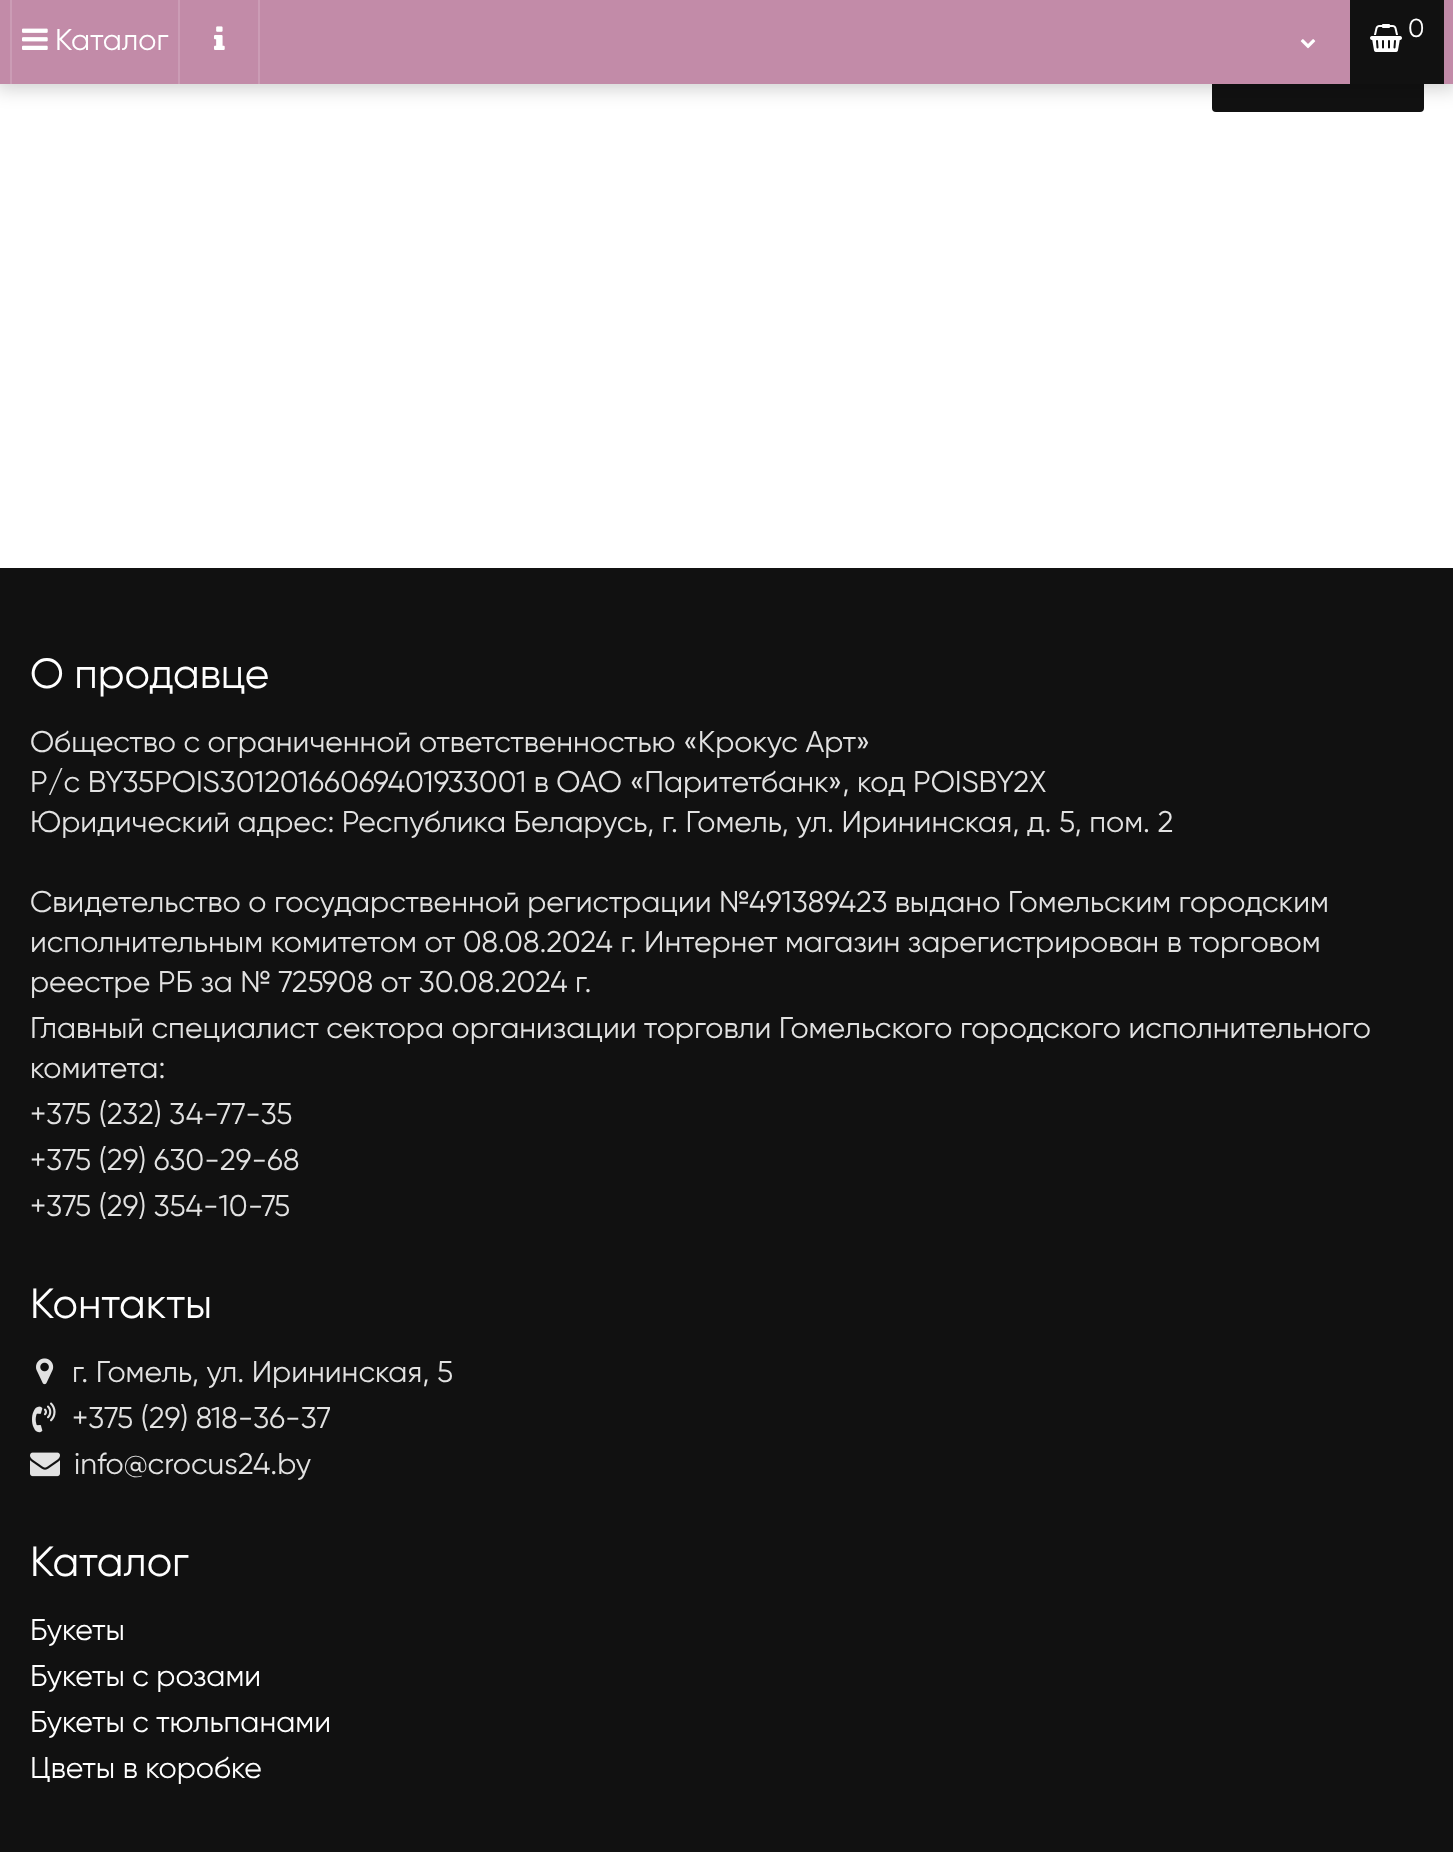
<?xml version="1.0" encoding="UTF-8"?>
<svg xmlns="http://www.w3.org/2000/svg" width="1453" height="1852">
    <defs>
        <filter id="blur1" x="-50%" y="-200%" width="200%" height="500%"><feGaussianBlur stdDeviation="10"/></filter>
    </defs>
    <rect width="100%" height="100%" fill="#FFFFFF"/>
    <rect x="1213" y="45" width="210" height="66" rx="3" fill="#111111" stroke="#111111" stroke-width="2"/>
    <rect x="-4" y="-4" width="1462" height="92" fill="#000000" fill-opacity="0.2" filter="url(#blur1)"/>
    <rect x="0" y="0" width="1453" height="84" fill="#C28BA8"/>
    <rect x="178" y="0" width="2" height="84" fill="#CB9CB5"/>
    <rect x="10" y="0" width="2" height="84" fill="#CB9CB5"/>
    <image x="22" y="28" width="26" height="22" href="img_01.png"/>
    <text x="55" y="50" font-family="Gilroy" font-size="30" fill="#FFFFFF">Каталог</text>
    <rect x="258" y="0" width="2" height="84" fill="#CB9CB5"/>
    <image x="214" y="26" width="11" height="24" href="img_02.png"/>
    <image x="1300" y="39" width="16" height="10" href="img_03.png"/>
    <rect x="1350" y="0" width="94" height="84" fill="#111111"/>
    <image x="1370" y="24" width="32" height="28" href="img_04.png"/>
    <text x="1408" y="37" font-family="Gilroy" font-size="26" fill="#FFFFFF">0</text>
    <rect x="0" y="568" width="1453" height="1284" fill="#111111"/>
    <text x="30" y="688" font-family="Gilroy" font-size="42" fill="#FFFFFF">О продавце</text>
    <text font-family="Gilroy" font-size="30" fill="#E2E2E2">
        <tspan x="30" y="752">Общество с ограниченной ответственностью «Крокус Арт»</tspan>
        <tspan x="30" y="792">Р/с BY35POIS30120166069401933001 в ОАО «Паритетбанк», код POISBY2X</tspan>
        <tspan x="30" y="832">Юридический адрес: Республика Беларусь, г. Гомель, ул. Ирининская, д. 5, пом. 2</tspan>
    </text>
    <text font-family="Gilroy" font-size="30" fill="#E2E2E2">
        <tspan x="30" y="912">Свидетельство о государственной регистрации №491389423 выдано Гомельским городским</tspan>
        <tspan x="30" y="952">исполнительным комитетом от 08.08.2024 г. Интернет магазин зарегистрирован в торговом</tspan>
        <tspan x="30" y="992">реестре РБ за № 725908 от 30.08.2024 г.</tspan>
        <tspan x="30" y="1038">Главный специалист сектора организации торговли Гомельского городского исполнительного</tspan>
        <tspan x="30" y="1078">комитета:</tspan>
        <tspan x="30" y="1124">+375 (232) 34-77-35</tspan>
        <tspan x="30" y="1170">+375 (29) 630-29-68</tspan>
        <tspan x="30" y="1216">+375 (29) 354-10-75</tspan>
    </text>
    <text x="30" y="1318" font-family="Gilroy" font-size="42" fill="#FFFFFF">Контакты</text>
    <image x="36" y="1358" width="18" height="27" href="img_05.png"/>
    <text x="72" y="1382" font-family="Gilroy" font-size="30" fill="#E2E2E2">г. Гомель, ул. Ирининская, 5</text>
    <image x="32" y="1402" width="24" height="31" href="img_06.png"/>
    <text x="72" y="1428" font-family="Gilroy" font-size="30" fill="#E2E2E2">+375 (29) 818-36-37</text>
    <image x="30" y="1452" width="30" height="25" href="img_07.png"/>
    <text x="74" y="1474" font-family="Gilroy" font-size="30" fill="#E2E2E2">info@crocus24.by</text>
    <text x="30" y="1576" font-family="Gilroy" font-size="42" fill="#FFFFFF">Каталог</text>
    <text font-family="Gilroy" font-size="30" fill="#FFFFFF">
        <tspan x="30" y="1640">Букеты</tspan>
        <tspan x="30" y="1686">Букеты с розами</tspan>
        <tspan x="30" y="1732">Букеты с тюльпанами</tspan>
        <tspan x="30" y="1778">Цветы в коробке</tspan>
    </text>
</svg>
